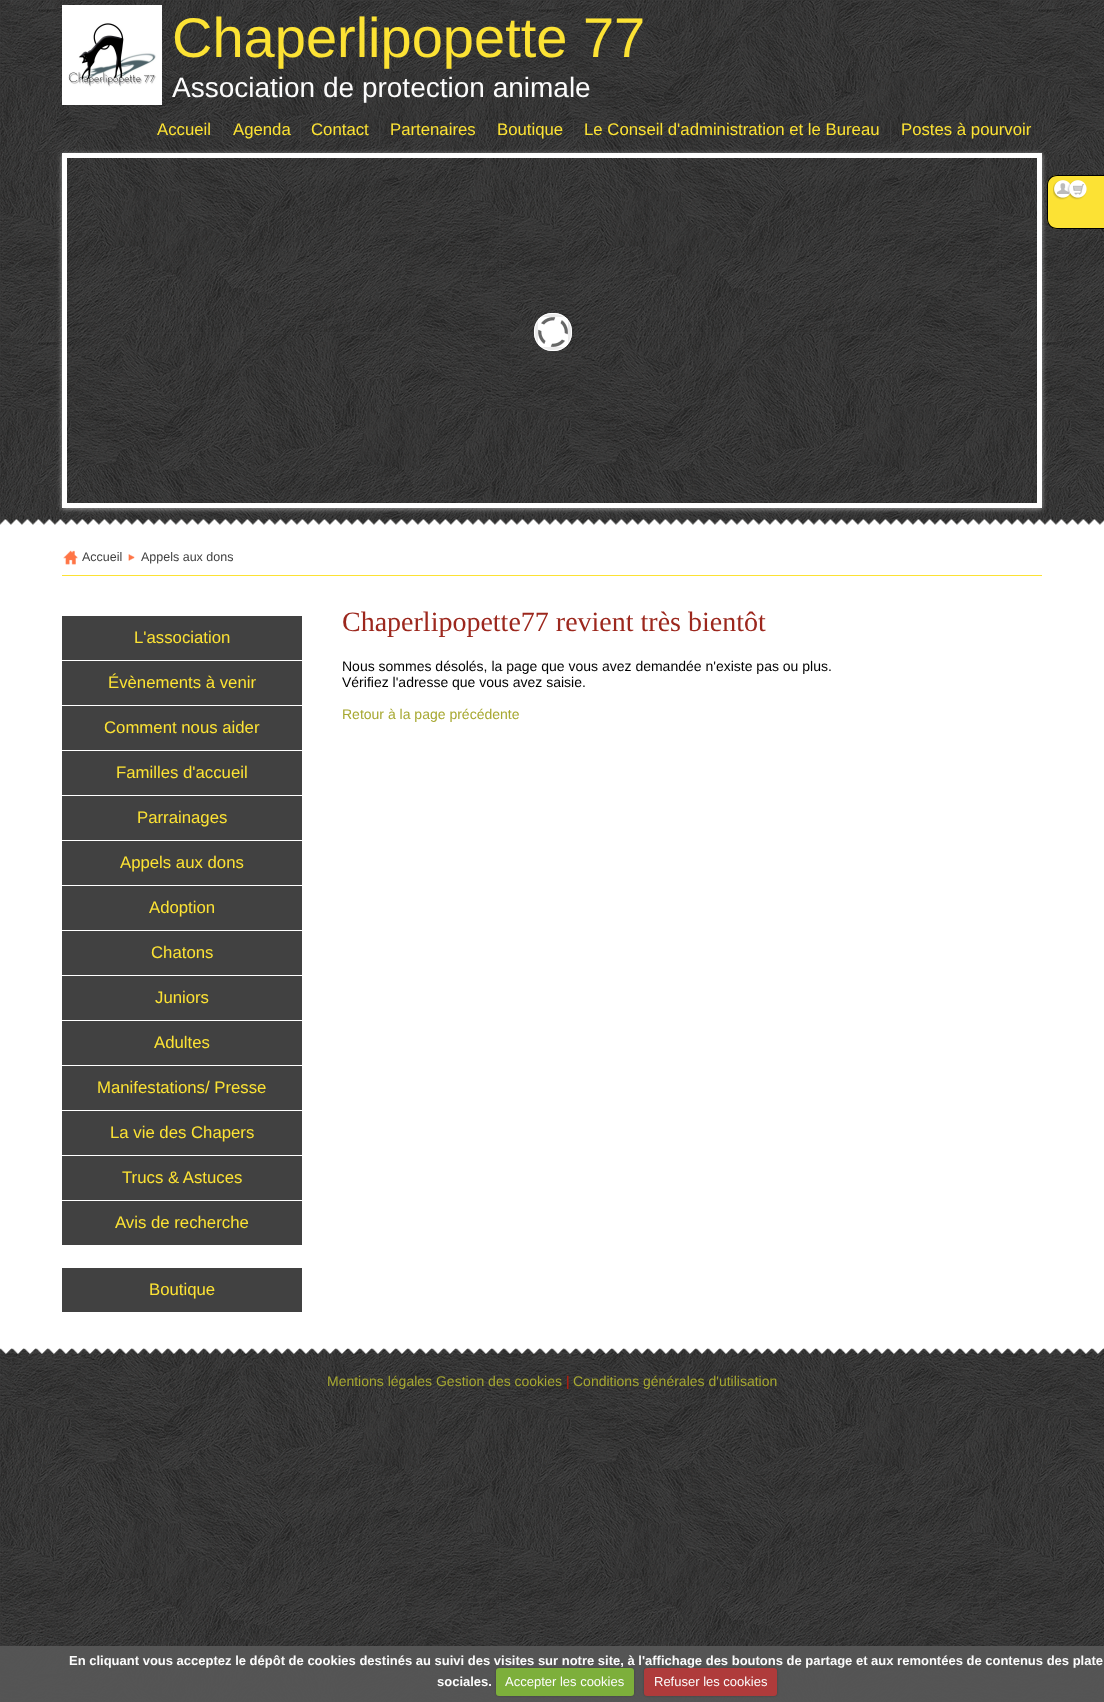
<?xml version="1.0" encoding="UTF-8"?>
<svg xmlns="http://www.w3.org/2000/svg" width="1104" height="1702">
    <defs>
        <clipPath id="clip1"><path d="M 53 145 H 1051 V 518 H 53 Z M 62 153 H 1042 V 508 H 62 Z" clip-rule="evenodd"/></clipPath>
        <filter id="blur1" x="-50%" y="-200%" width="200%" height="500%"><feGaussianBlur stdDeviation="2.5"/></filter>
        <filter id="blur2" x="-50%" y="-200%" width="200%" height="500%"><feGaussianBlur stdDeviation="1"/></filter>
    </defs>
    <rect width="100%" height="100%" fill="#050505"/>
    <image x="0" y="0" width="1104" height="1702" href="img_01.png"/>
    <image x="62" y="5" width="100" height="100" href="img_02.png"/>
    <text x="172" y="57" font-family="Liberation Sans" font-size="56" fill="#FCE234">Chaperlipopette 77</text>
    <text x="172" y="97" font-family="Liberation Sans" font-size="28" fill="#FCFCFC">Association de protection animale</text>
    <text x="157" y="135" font-family="Liberation Sans" font-size="16.75" fill="#FCE234">Accueil</text>
    <rect x="222" y="120" width="1" height="23" fill="#3D3D3D" fill-opacity="0.98"/>
    <text x="233" y="135" font-family="Liberation Sans" font-size="16.75" fill="#FCE234">Agenda</text>
    <rect x="300" y="120" width="1" height="23" fill="#3D3D3D" fill-opacity="0.98"/>
    <text x="311" y="135" font-family="Liberation Sans" font-size="16.75" fill="#FCE234">Contact</text>
    <rect x="379" y="120" width="1" height="23" fill="#3D3D3D" fill-opacity="0.98"/>
    <text x="390" y="135" font-family="Liberation Sans" font-size="16.75" fill="#FCE234">Partenaires</text>
    <rect x="486" y="120" width="1" height="23" fill="#3D3D3D" fill-opacity="0.98"/>
    <text x="497" y="135" font-family="Liberation Sans" font-size="16.75" fill="#FCE234">Boutique</text>
    <rect x="573" y="120" width="1" height="23" fill="#3D3D3D" fill-opacity="0.98"/>
    <text x="584" y="135" font-family="Liberation Sans" font-size="16.75" fill="#FCE234">Le Conseil d'administration et le Bureau</text>
    <rect x="890" y="120" width="1" height="23" fill="#3D3D3D" fill-opacity="0.98"/>
    <text x="901" y="135" font-family="Liberation Sans" font-size="16.75" fill="#FCE234">Postes à pourvoir</text>
    <g clip-path="url(#clip1)">
        <rect x="62" y="154" width="980" height="355" fill="#999999" filter="url(#blur1)"/>
    </g>
    <rect x="64.5" y="155.5" width="975" height="350" fill="none" stroke="#FFFFFF" stroke-width="5"/>
    <rect x="534" y="313" width="38" height="38" rx="18" fill="#FFFFFF" fill-opacity="0.9"/>
    <image x="538" y="317" width="30" height="30" href="img_03.png"/>
    <rect x="534.5" y="313.5" width="37" height="37" rx="17.5" fill="none" stroke="#FFFFFF"/>
    <path d="M 1057 175 H 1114 V 229 H 1057 C 1051.5 229 1047 224.5 1047 219 V 185 C 1047 179.5 1051.5 175 1057 175 Z" fill="#FCE234"/>
    <image x="1053" y="180" width="34" height="20" href="img_04.png"/>
    <path d="M 1057 175 H 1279 V 229 H 1057 C 1051 229 1047 225 1047 219 V 185 C 1047 179 1051 175 1057 175 Z M 1057 176 H 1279 V 228 H 1057 C 1052 228 1048 224 1048 219 V 185 C 1048 180 1052 176 1057 176 Z" fill="#000000" fill-rule="evenodd"/>
    <image x="0" y="519" width="1104" height="10" href="img_05.png"/>
    <rect x="0" y="529" width="1104" height="814" fill="#FFFFFF"/>
    <rect x="62" y="575" width="980" height="1" fill="#FCE234"/>
    <image x="63" y="550" width="15" height="15" href="img_06.png"/>
    <text x="82" y="561" font-family="Liberation Sans" font-size="12.5" fill="#414141">Accueil</text>
    <image x="128" y="554" width="7" height="7" href="img_07.png"/>
    <text x="141" y="561" font-family="Liberation Sans" font-size="12.5" fill="#414141">Appels aux dons</text>
    <rect x="62" y="616" width="240" height="44" fill="#414141"/>
    <text x="134" y="643" font-family="Liberation Sans" font-size="16.75" fill="#FCE234">L'association</text>
    <rect x="62" y="661" width="240" height="44" fill="#414141"/>
    <text x="108" y="688" font-family="Liberation Sans" font-size="16.75" fill="#FCE234">Évènements à venir</text>
    <rect x="62" y="706" width="240" height="44" fill="#414141"/>
    <text x="104" y="733" font-family="Liberation Sans" font-size="16.75" fill="#FCE234">Comment nous aider</text>
    <rect x="62" y="751" width="240" height="44" fill="#414141"/>
    <text x="116" y="778" font-family="Liberation Sans" font-size="16.75" fill="#FCE234">Familles d'accueil</text>
    <rect x="62" y="796" width="240" height="44" fill="#414141"/>
    <text x="137" y="823" font-family="Liberation Sans" font-size="16.75" fill="#FCE234">Parrainages</text>
    <rect x="62" y="841" width="240" height="44" fill="#414141"/>
    <text x="120" y="868" font-family="Liberation Sans" font-size="16.75" fill="#FCE234">Appels aux dons</text>
    <rect x="62" y="886" width="240" height="44" fill="#414141"/>
    <text x="149" y="913" font-family="Liberation Sans" font-size="16.75" fill="#FCE234">Adoption</text>
    <rect x="62" y="931" width="240" height="44" fill="#414141"/>
    <text x="151" y="958" font-family="Liberation Sans" font-size="16.75" fill="#FCE234">Chatons</text>
    <rect x="62" y="976" width="240" height="44" fill="#414141"/>
    <text x="155" y="1003" font-family="Liberation Sans" font-size="16.75" fill="#FCE234">Juniors</text>
    <rect x="62" y="1021" width="240" height="44" fill="#414141"/>
    <text x="154" y="1048" font-family="Liberation Sans" font-size="16.75" fill="#FCE234">Adultes</text>
    <rect x="62" y="1066" width="240" height="44" fill="#414141"/>
    <text x="97" y="1093" font-family="Liberation Sans" font-size="16.75" fill="#FCE234">Manifestations/ Presse</text>
    <rect x="62" y="1111" width="240" height="44" fill="#414141"/>
    <text x="110" y="1138" font-family="Liberation Sans" font-size="16.75" fill="#FCE234">La vie des Chapers</text>
    <rect x="62" y="1156" width="240" height="44" fill="#414141"/>
    <text x="122" y="1183" font-family="Liberation Sans" font-size="16.75" fill="#FCE234">Trucs &amp; Astuces</text>
    <rect x="62" y="1201" width="240" height="44" fill="#414141"/>
    <text x="115" y="1228" font-family="Liberation Sans" font-size="16.75" fill="#FCE234">Avis de recherche</text>
    <rect x="62" y="1268" width="240" height="44" fill="#414141"/>
    <text x="149" y="1295" font-family="Liberation Sans" font-size="16.75" fill="#FCE234">Boutique</text>
    <text x="342" y="631" font-family="Liberation Serif" font-size="28" fill="#9C271D">Chaperlipopette77 revient très bientôt</text>
    <text font-family="Liberation Sans" font-size="14" fill="#000000">
        <tspan x="342" y="671">Nous sommes désolés, la page que vous avez demandée n'existe pas ou plus.</tspan>
        <tspan x="342" y="687">Vérifiez l'adresse que vous avez saisie.</tspan>
    </text>
    <text x="342" y="719" font-family="Liberation Sans" font-size="14" fill="#A7A831">Retour à la page précédente</text>
    <image x="0" y="1343" width="1104" height="11" href="img_08.png"/>
    <text x="327" y="1386" font-family="Liberation Sans" font-size="14" fill="#A7A831">Mentions légales Gestion des cookies</text>
    <text x="566" y="1386" font-family="Liberation Sans" font-size="14" fill="#CF1907">|</text>
    <text x="573" y="1386" font-family="Liberation Sans" font-size="14" fill="#A7A831">Conditions générales d'utilisation</text>
    <rect x="0" y="1646" width="1104" height="56" fill="#565656" fill-opacity="0.95"/>
    <text x="69" y="1665" font-family="Liberation Sans" font-size="13" font-weight="700" fill="#FCFCFC">En cliquant vous acceptez le dépôt de cookies destinés au suivi des visites sur notre site, à l'affichage des boutons de partage et aux remontées de contenus des plate</text>
    <text x="437" y="1686" font-family="Liberation Sans" font-size="13" font-weight="700" fill="#FCFCFC">sociales.</text>
    <rect x="496" y="1668" width="138" height="28" rx="3" fill="#000000" fill-opacity="0.25" filter="url(#blur2)"/>
    <rect x="496" y="1668" width="138" height="28" rx="3" fill="#7DAF3B"/>
    <text x="505" y="1686" font-family="Liberation Sans" font-size="13" fill="#FCFCFC">Accepter les cookies</text>
    <rect x="644" y="1668" width="133" height="28" rx="3" fill="#000000" fill-opacity="0.25" filter="url(#blur2)"/>
    <rect x="644" y="1668" width="133" height="28" rx="3" fill="#AF3B3B"/>
    <text x="654" y="1686" font-family="Liberation Sans" font-size="13" fill="#FCFCFC">Refuser les cookies</text>
</svg>
